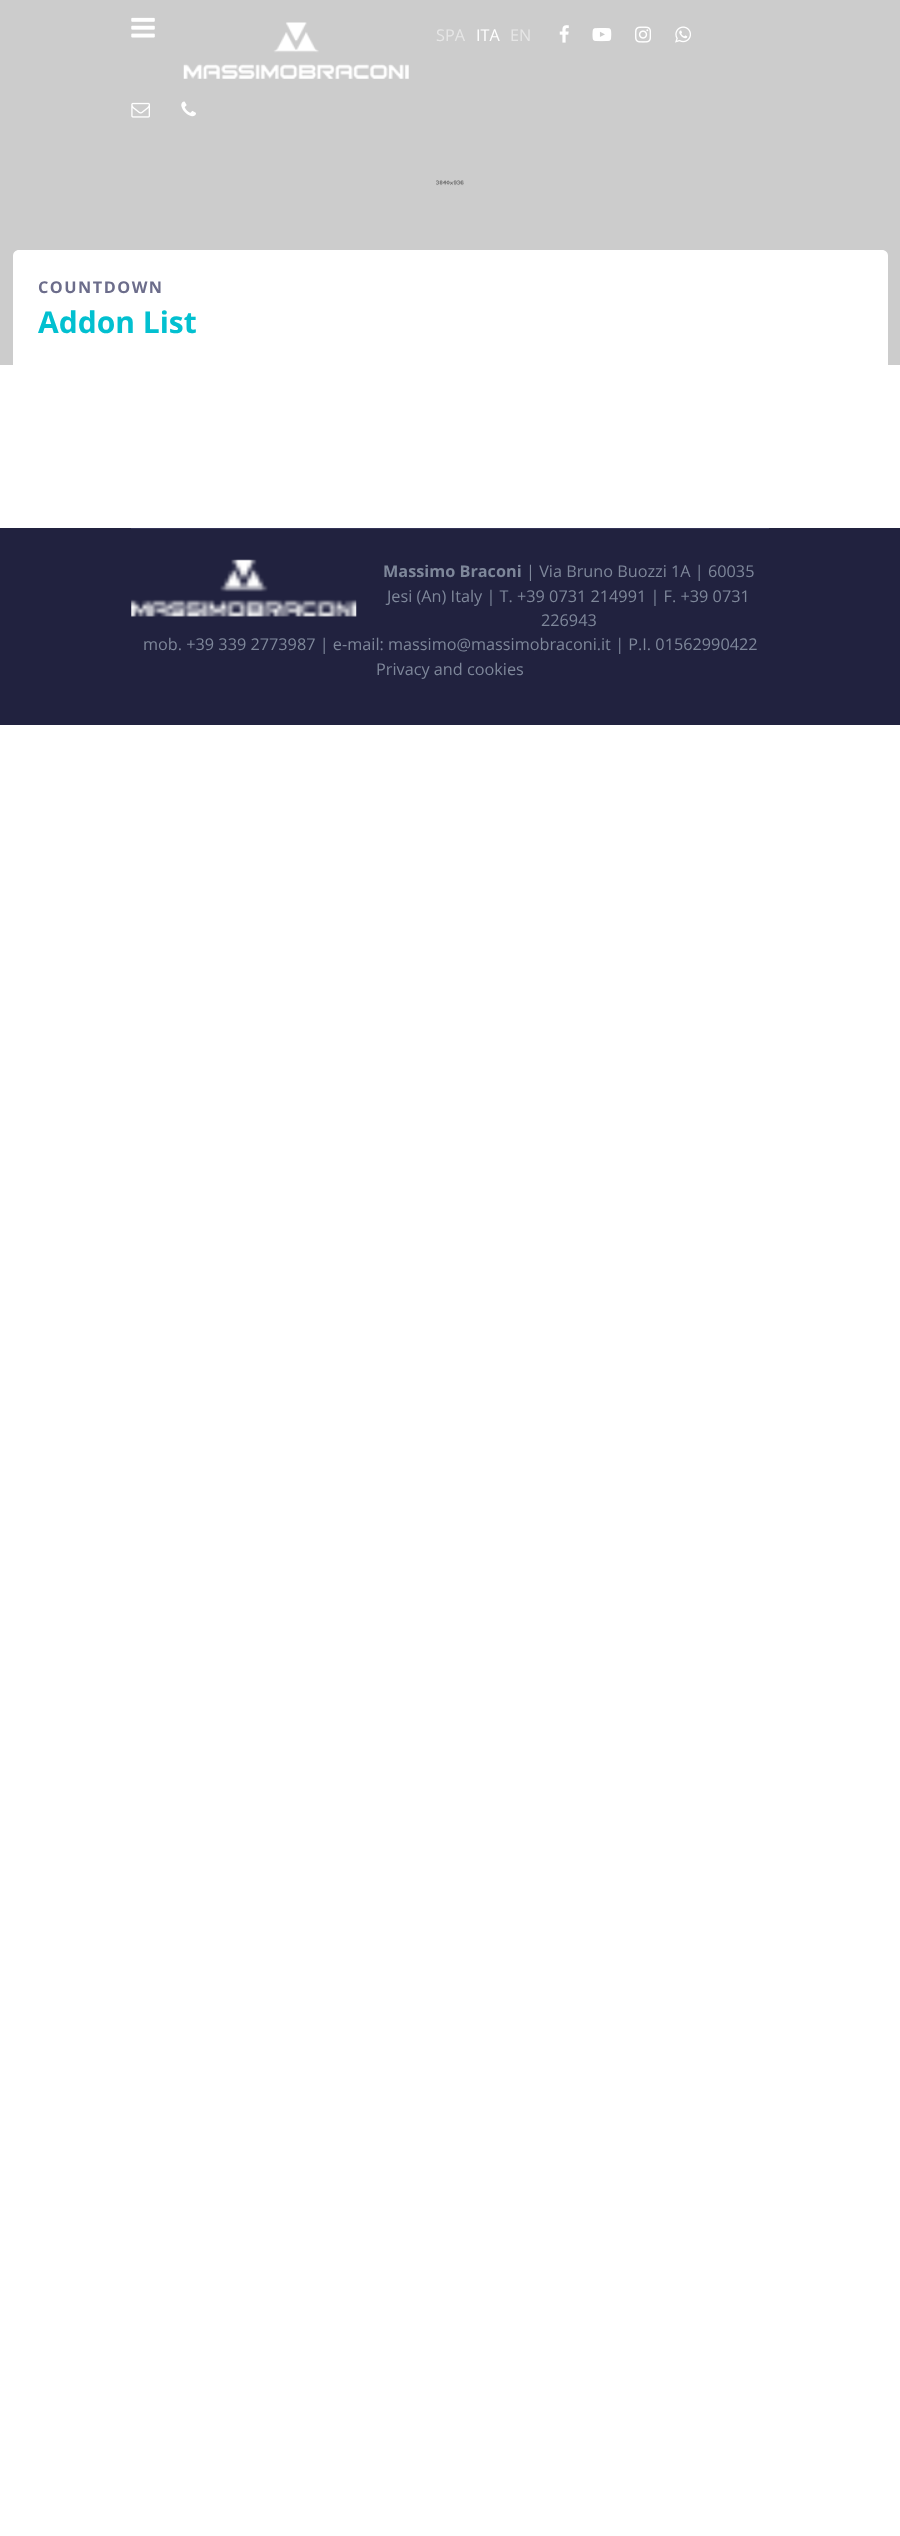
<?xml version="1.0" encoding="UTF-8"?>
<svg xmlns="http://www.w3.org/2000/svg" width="900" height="2536">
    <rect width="100%" height="100%" fill="#FFFFFF"/>
    <image x="0" y="0" width="900" height="365" href="img_09.png"/>
    <image x="131" y="17" width="24" height="21" href="img_01.png"/>
    <image x="183" y="22" width="226" height="57" href="img_02.png"/>
    <text x="436" y="41" font-family="Open Sans" font-size="16.25" fill="#E6E6E6">SPA</text>
    <text x="476" y="41" font-family="Open Sans" font-size="16.25" fill="#FFFFFF">ITA</text>
    <text x="510" y="41" font-family="Open Sans" font-size="16.25" fill="#E6E6E6">EN</text>
    <image x="559" y="25" width="10" height="18" href="img_03.png"/>
    <image x="592" y="28" width="20" height="14" href="img_04.png"/>
    <image x="635" y="26" width="16" height="17" href="img_05.png"/>
    <image x="675" y="26" width="16" height="17" href="img_06.png"/>
    <image x="131" y="102" width="19" height="16" href="img_07.png"/>
    <image x="181" y="101" width="15" height="16" href="img_08.png"/>
    <path d="M 19 250 H 882 C 885.5 250 888 252.5 888 256 V 365 H 13 V 256 C 13 252.5 15.5 250 19 250 Z" fill="#FFFFFF"/>
    <text x="38" y="293" font-family="Open Sans" font-size="16.25" font-weight="700" letter-spacing="1.5" fill="#6C6D8B">COUNTDOWN</text>
    <text x="38" y="333" font-family="Open Sans" font-size="30" font-weight="700" fill="#02C0D0">Addon List</text>
    <rect x="0" y="528" width="900" height="197" fill="#21223F"/>
    <rect x="131" y="528" width="638" height="1" fill="#333457"/>
    <image x="131" y="559" width="226" height="58" href="img_10.png"/>
    <text x="383" y="577" font-family="Open Sans" font-size="16.25" font-weight="700" fill="#7E879A">Massimo Braconi</text>
    <text x="526" y="577" font-family="Open Sans" font-size="16.25" fill="#7E879A">| Via Bruno Buozzi 1A | 60035</text>
    <text x="387" y="602" font-family="Open Sans" font-size="16.25" fill="#7E879A">Jesi (An) Italy | T. +39 0731 214991 | F. +39 0731</text>
    <text x="541" y="626" font-family="Open Sans" font-size="16.25" fill="#7E879A">226943</text>
    <text x="143" y="650" font-family="Open Sans" font-size="16.25" fill="#7E879A">mob. +39 339 2773987 | e-mail: massimo@massimobraconi.it | P.I. 01562990422</text>
    <text x="376" y="675" font-family="Open Sans" font-size="16.25" fill="#7E879A">Privacy and cookies</text>
</svg>
